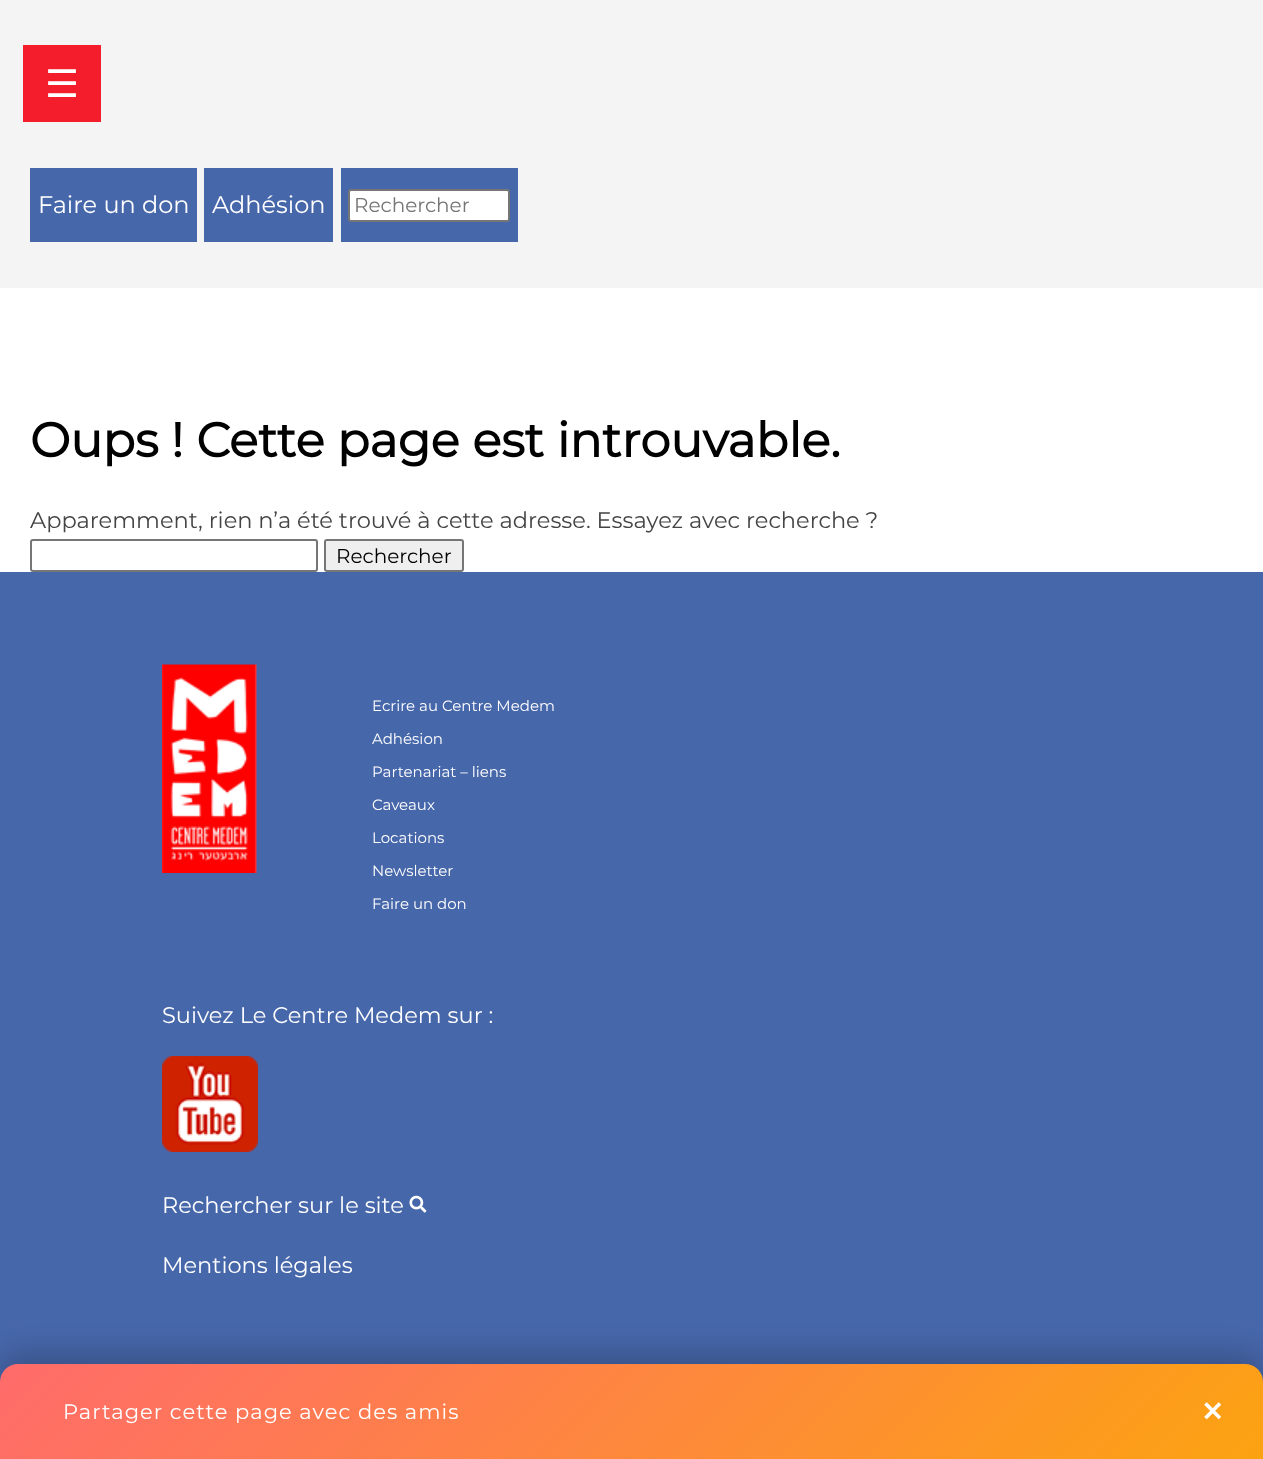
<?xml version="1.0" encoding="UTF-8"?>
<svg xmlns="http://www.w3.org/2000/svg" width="1263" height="1459">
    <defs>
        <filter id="blur1" x="-50%" y="-200%" width="200%" height="500%"><feGaussianBlur stdDeviation="15"/></filter>
        <linearGradient id="g1" gradientUnits="userSpaceOnUse" x1="292" y1="1072" x2="971" y2="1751"><stop offset="0" stop-color="#FF6B6B"/><stop offset="1" stop-color="#FCA311"/></linearGradient>
    </defs>
    <rect width="100%" height="100%" fill="#FFFFFF"/>
    <rect x="0" y="0" width="1263" height="288" fill="#F4F4F4"/>
    <rect x="23" y="45" width="78" height="77" fill="#F31D2B"/>
    <text x="45" y="97" font-family="DejaVu Sans" font-size="38" fill="#FFFFFF">☰</text>
    <rect x="30" y="168" width="167" height="74" fill="#4767AB"/>
    <text x="38" y="213" font-family="Montserrat" font-size="24" fill="#FFFFFF">Faire un don</text>
    <rect x="204" y="168" width="129" height="74" fill="#4767AB"/>
    <text x="212" y="213" font-family="Montserrat" font-size="24" fill="#FFFFFF">Adhésion</text>
    <rect x="341" y="168" width="177" height="74" fill="#4767AB"/>
    <rect x="349" y="190" width="160" height="31" rx="2" fill="#FFFFFF" stroke="#767676" stroke-width="2"/>
    <text x="354" y="212" font-family="Montserrat" font-size="20" fill="#757575">Rechercher</text>
    <text x="30" y="457" font-family="Montserrat" font-size="48" font-weight="700" fill="#000000">Oups ! Cette page est introuvable.</text>
    <text x="30" y="528" font-family="Montserrat" font-size="22.5" fill="#444444">Apparemment, rien n’a été trouvé à cette adresse. Essayez avec recherche ?</text>
    <rect x="31" y="540" width="286" height="31" rx="2" fill="none" stroke="#767676" stroke-width="2"/>
    <rect x="325" y="540" width="138" height="31" rx="2" fill="#EFEFEF" stroke="#767676" stroke-width="2"/>
    <text x="336" y="563" font-family="Montserrat" font-size="20" fill="#000000">Rechercher</text>
    <rect x="0" y="572" width="1263" height="810" fill="#4767AB"/>
    <image x="162" y="664" width="95" height="209" href="img_01.png"/>
    <text x="372" y="711" font-family="Montserrat" font-size="15" fill="#FFFFFF">Ecrire au Centre Medem</text>
    <text x="372" y="744" font-family="Montserrat" font-size="15" fill="#FFFFFF">Adhésion</text>
    <text x="372" y="777" font-family="Montserrat" font-size="15" fill="#FFFFFF">Partenariat – liens</text>
    <text x="372" y="810" font-family="Montserrat" font-size="15" fill="#FFFFFF">Caveaux</text>
    <text x="372" y="843" font-family="Montserrat" font-size="15" fill="#FFFFFF">Locations</text>
    <text x="372" y="876" font-family="Montserrat" font-size="15" fill="#FFFFFF">Newsletter</text>
    <text x="372" y="909" font-family="Montserrat" font-size="15" fill="#FFFFFF">Faire un don</text>
    <text x="162" y="1023" font-family="Montserrat" font-size="22.5" fill="#FFFFFF">Suivez Le Centre Medem sur :</text>
    <image x="162" y="1056" width="96" height="96" href="img_02.png"/>
    <text x="162" y="1213" font-family="Montserrat" font-size="22.5" fill="#FFFFFF">Rechercher sur le site</text>
    <image x="409" y="1195" width="18" height="18" href="img_03.png"/>
    <text x="162" y="1273" font-family="Montserrat" font-size="22.5" fill="#FFFFFF">Mentions légales</text>
    <rect x="0" y="1352" width="1263" height="96" rx="18" fill="#000000" fill-opacity="0.2" filter="url(#blur1)"/>
    <path d="M 18 1364 H 1245 C 1255 1364 1263 1372 1263 1382 V 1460 H 0 V 1382 C 0 1372 8 1364 18 1364 Z" fill="url(#g1)"/>
    <text x="63" y="1419" font-family="Montserrat" font-size="21" letter-spacing="1.05" fill="#FFFFFF">Partager cette page avec des amis</text>
    <text x="1201" y="1421" font-family="DejaVu Sans" font-size="27" font-weight="700" fill="#FFFFFF">✕</text>
</svg>
